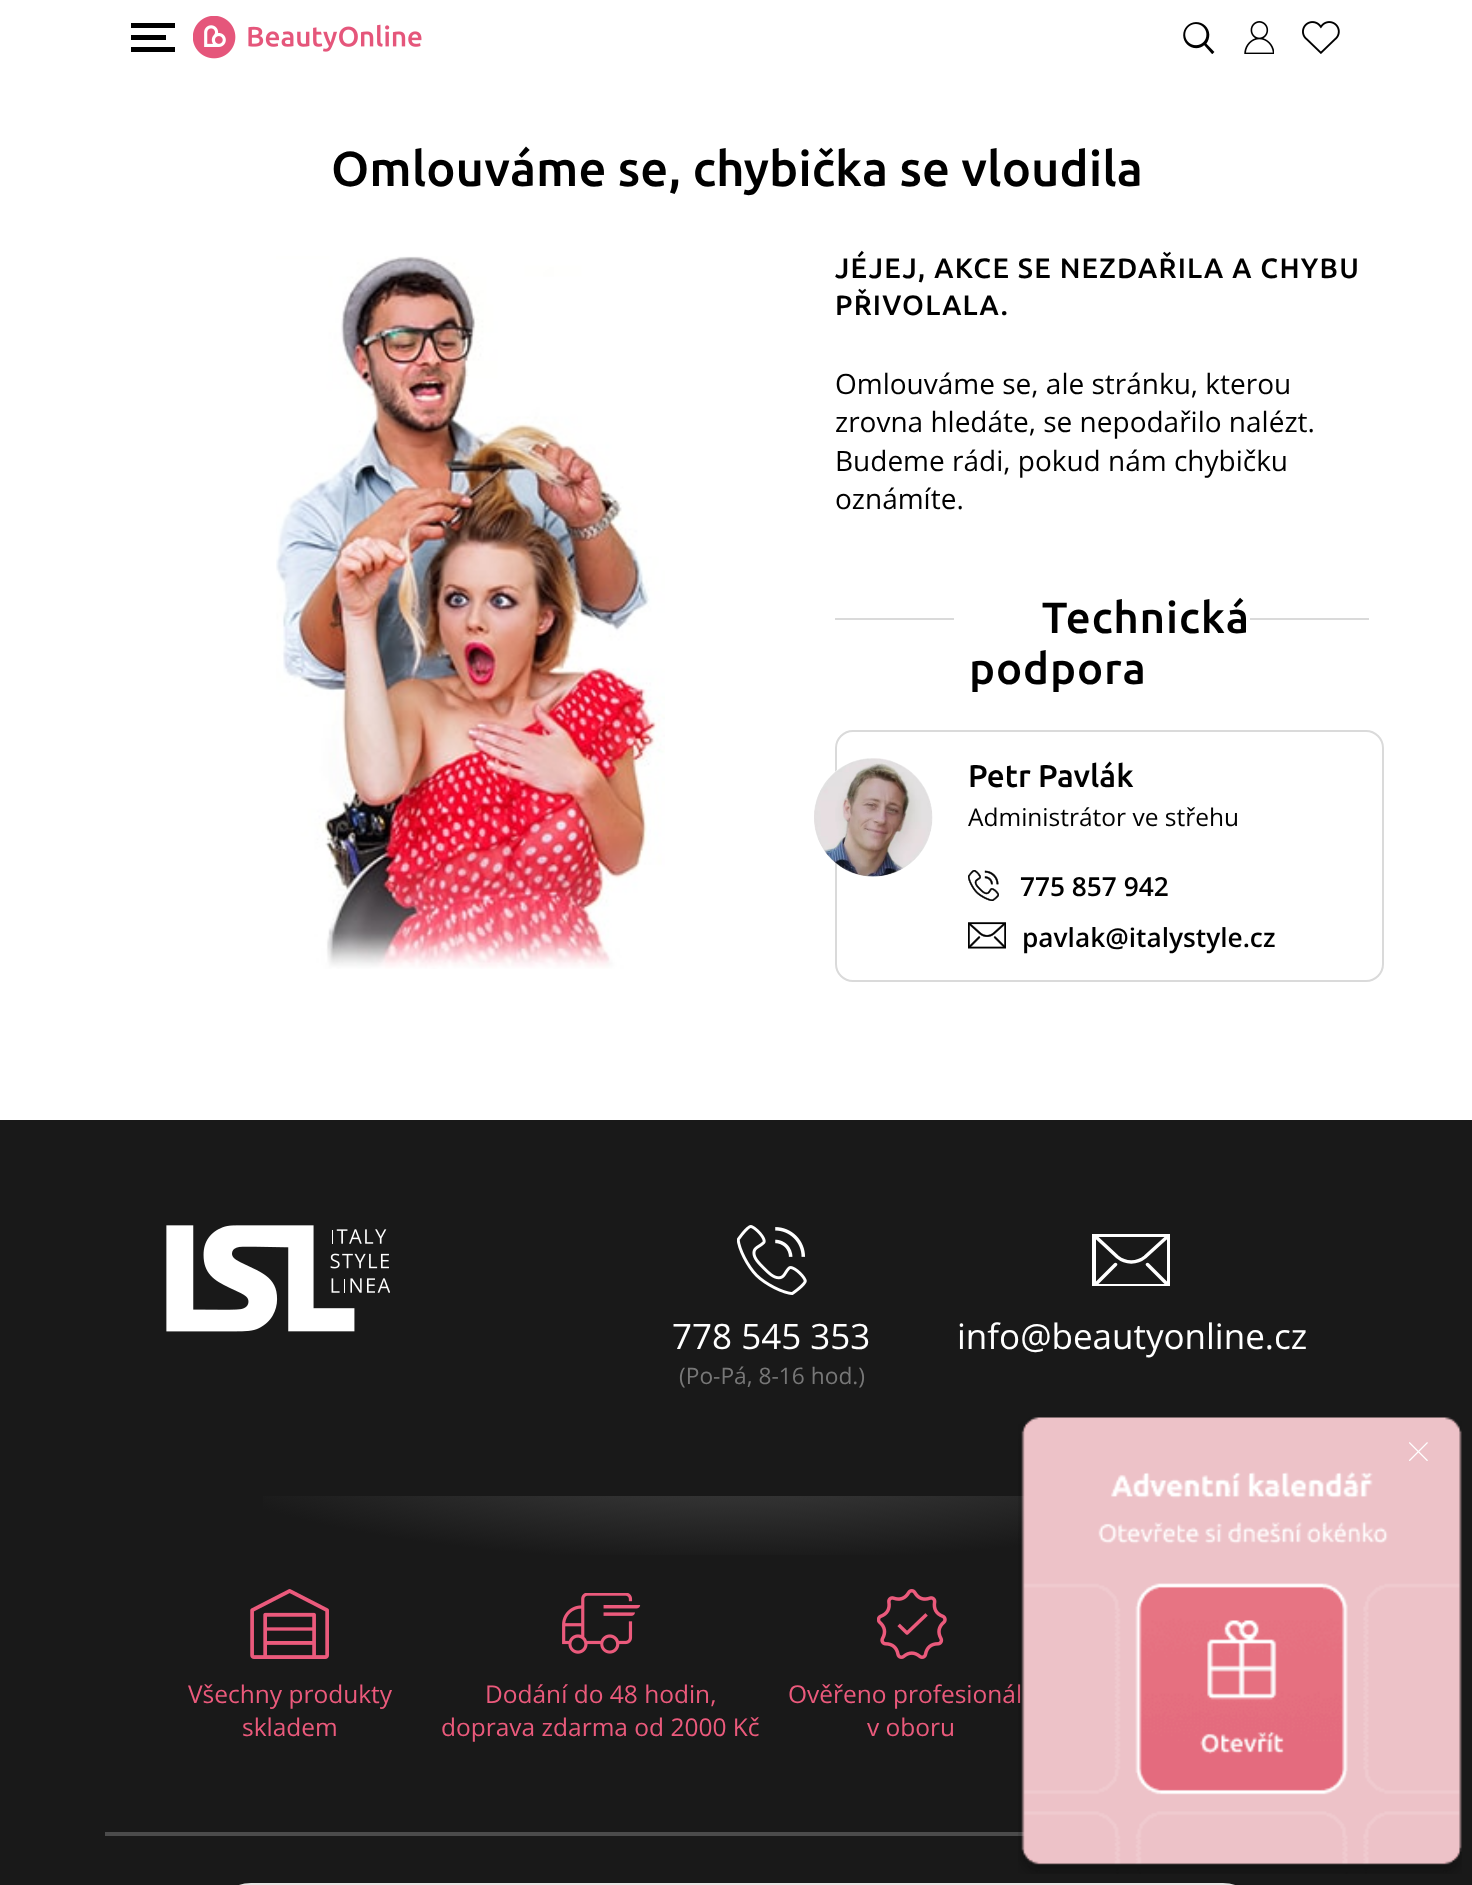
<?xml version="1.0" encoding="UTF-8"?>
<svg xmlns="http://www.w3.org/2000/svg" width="1472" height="1885">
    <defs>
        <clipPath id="clip1"><rect x="1092" y="1234" width="79" height="52"/></clipPath>
        <radialGradient id="g1" gradientUnits="userSpaceOnUse" cx="0" cy="0" r="1" gradientTransform="matrix(807 0 0 165 737 1446)"><stop offset="0.16" stop-color="#3C3C3C"/><stop offset="0.7" stop-color="#191919"/></radialGradient>
    </defs>
    <rect width="100%" height="100%" fill="#FFFFFF"/>
    <rect x="131" y="23" width="44" height="5" fill="#000000"/>
    <rect x="131" y="35" width="35" height="5" fill="#000000"/>
    <rect x="131" y="47" width="44" height="5" fill="#000000"/>
    <image x="193" y="16" width="229" height="43" href="img_01.png"/>
    <image x="1183" y="22" width="32" height="32" href="img_02.png"/>
    <image x="1244" y="21" width="30" height="33" href="img_03.png"/>
    <image x="1302" y="21" width="38" height="33" href="img_04.png"/>
    <text x="331" y="186" font-family="Ubuntu" font-size="49" font-weight="500" fill="#000000">Omlouváme se, chybička se vloudila</text>
    <image x="276" y="256" width="389" height="713" href="img_05.png"/>
    <text font-family="Ubuntu" font-size="28" font-weight="500" letter-spacing="1.25" fill="#000000">
        <tspan x="835" y="278">JÉJEJ, AKCE SE NEZDAŘILA A CHYBU</tspan>
        <tspan x="835" y="315">PŘIVOLALA.</tspan>
    </text>
    <text font-family="Open Sans" font-size="28" fill="#000000">
        <tspan x="835" y="394">Omlouváme se, ale stránku, kterou</tspan>
        <tspan x="835" y="432">zrovna hledáte, se nepodařilo nalézt.</tspan>
        <tspan x="835" y="471">Budeme rádi, pokud nám chybičku</tspan>
        <tspan x="835" y="509">oznámíte.</tspan>
    </text>
    <rect x="835" y="618" width="534" height="2" fill="#DADADA"/>
    <rect x="954" y="618" width="296" height="2" fill="#FFFFFF"/>
    <text x="1042" y="633" font-family="Ubuntu" font-size="43.75" font-weight="500" letter-spacing="0.9" fill="#000000">Technická</text>
    <text x="969" y="684" font-family="Ubuntu" font-size="43.75" font-weight="500" letter-spacing="0.9" fill="#000000">podpora</text>
    <rect x="836" y="731" width="547" height="250" rx="17" fill="none" stroke="#DADADA" stroke-width="2"/>
    <image x="814" y="758" width="119" height="119" href="img_06.png"/>
    <text x="968" y="787" font-family="Ubuntu" font-size="31.5" font-weight="500" fill="#000000">Petr Pavlák</text>
    <text x="968" y="826" font-family="Open Sans" font-size="24.5" fill="#000000">Administrátor ve střehu</text>
    <image x="968" y="870" width="31" height="31" href="img_07.png"/>
    <text x="1020" y="896" font-family="Open Sans" font-size="26.25" font-weight="600" fill="#000000">775 857 942</text>
    <image x="968" y="922" width="38" height="27" href="img_08.png"/>
    <text x="1022" y="947" font-family="Open Sans" font-size="26.25" font-weight="600" fill="#000000">pavlak@italystyle.cz</text>
    <rect x="0" y="1120" width="1472" height="765" fill="#191919"/>
    <image x="166" y="1225" width="224" height="107" href="img_09.png"/>
    <image x="737" y="1225" width="70" height="70" href="img_10.png"/>
    <text x="672" y="1349" font-family="Open Sans" font-size="35" fill="#FFFFFF">778 545 353</text>
    <text x="679" y="1384" font-family="Open Sans" font-size="22.75" fill="#777777">(Po-Pá, 8-16 hod.)</text>
    <g clip-path="url(#clip1)">
        <path d="M 1167 1237 V 1284 H 1096 V 1237 H 1167 M 1170 1234 H 1092 V 1287 H 1170 Z" fill="#FFFFFF"/>
    </g>
    <path d="M 1096 1237 L 1117.5 1257 C 1125.5 1263.5 1137 1263.5 1145 1257 L 1167 1237" fill="none" stroke="#FFFFFF" stroke-width="3.5" stroke-linecap="round" stroke-linejoin="round"/>
    <path d="M 1096 1284 L 1115.5 1264.5" fill="none" stroke="#FFFFFF" stroke-width="3.5" stroke-linecap="round" stroke-linejoin="round"/>
    <path d="M 1167 1284 L 1147.5 1264.5" fill="none" stroke="#FFFFFF" stroke-width="3.5" stroke-linecap="round" stroke-linejoin="round"/>
    <text x="957" y="1349" font-family="Open Sans" font-size="35" fill="#FFFFFF">info@beautyonline.cz</text>
    <rect x="263" y="1496" width="762" height="59" fill="url(#g1)"/>
    <image x="250" y="1589" width="79" height="70" href="img_11.png"/>
    <text x="188" y="1703" font-family="Open Sans" font-size="24.5" fill="#EB5A7C">Všechny produkty</text>
    <text x="242" y="1736" font-family="Open Sans" font-size="24.5" fill="#EB5A7C">skladem</text>
    <image x="562" y="1593" width="79" height="61" href="img_12.png"/>
    <text x="485" y="1703" font-family="Open Sans" font-size="24.5" fill="#EB5A7C">Dodání do 48 hodin,</text>
    <text x="441" y="1736" font-family="Open Sans" font-size="24.5" fill="#EB5A7C">doprava zdarma od 2000 Kč</text>
    <image x="877" y="1589" width="70" height="70" href="img_13.png"/>
    <text x="788" y="1703" font-family="Open Sans" font-size="24.5" fill="#EB5A7C">Ověřeno profesionál</text>
    <text x="867" y="1736" font-family="Open Sans" font-size="24.5" fill="#EB5A7C">v oboru</text>
    <rect x="105" y="1832" width="920" height="4" fill="#4B4B4B"/>
    <rect x="229" y="1884" width="1016" height="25" rx="22" fill="none" stroke="#E7E5E3" stroke-width="2"/>
    <image x="1018" y="1417" width="444" height="457" href="img_14.png"/>
    <image x="1409" y="1442" width="19" height="19" href="img_15.png"/>
</svg>
